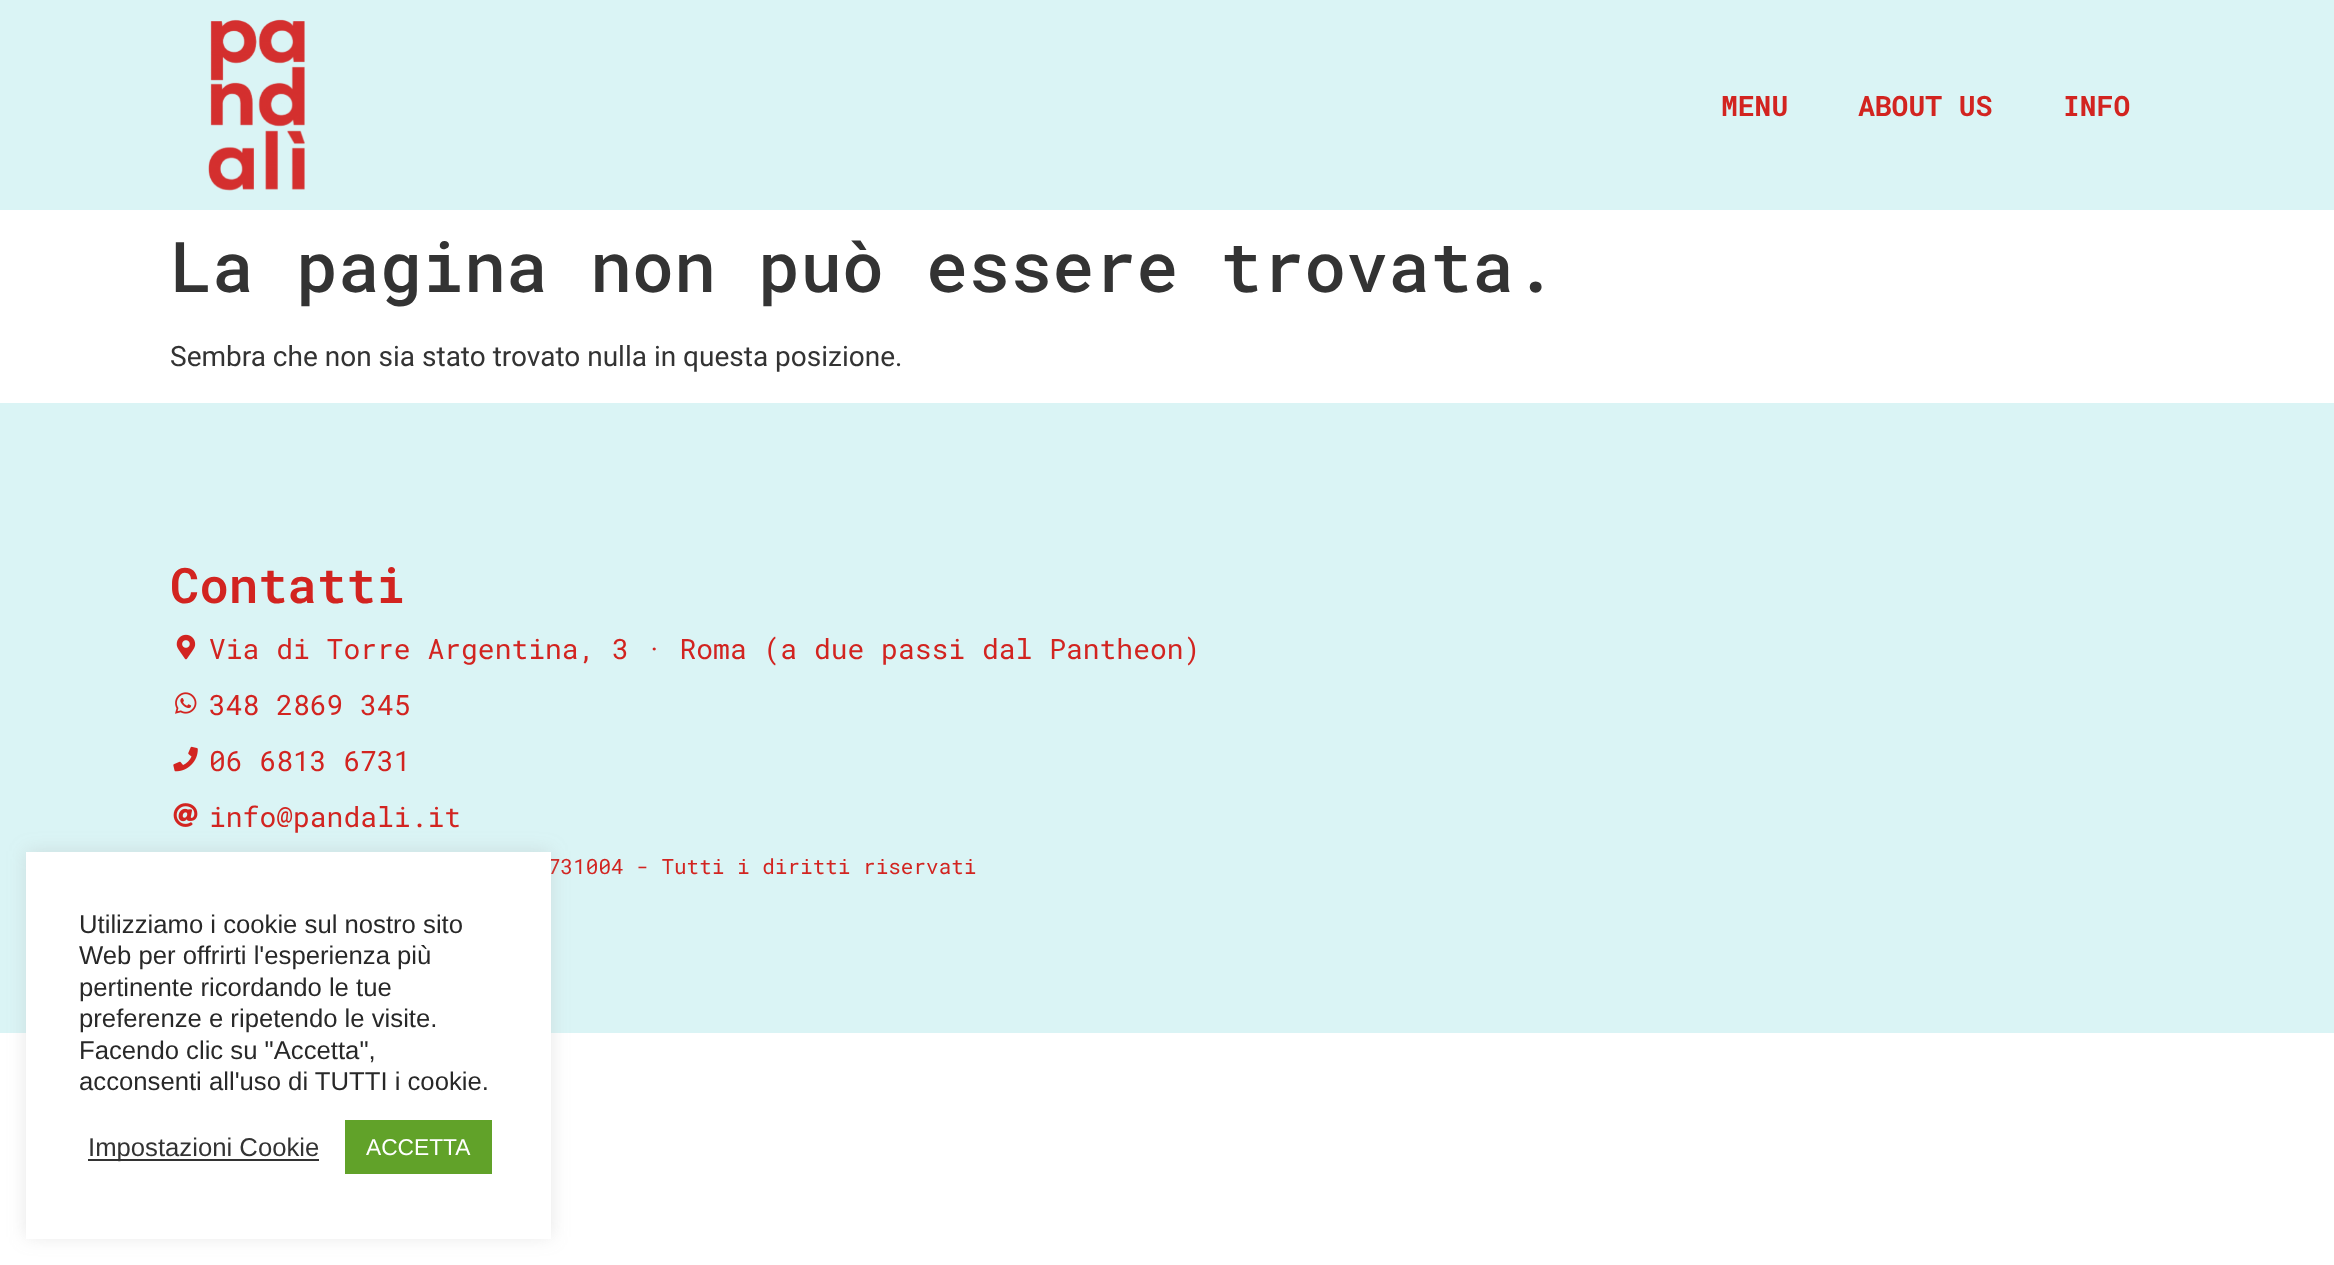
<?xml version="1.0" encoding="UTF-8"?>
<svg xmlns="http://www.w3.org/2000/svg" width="2334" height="1265">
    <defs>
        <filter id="blur1" x="-50%" y="-200%" width="200%" height="500%"><feGaussianBlur stdDeviation="9"/></filter>
    </defs>
    <rect width="100%" height="100%" fill="#FFFFFF"/>
    <rect x="0" y="0" width="2334" height="210" fill="#DAF4F5"/>
    <image x="208" y="19" width="97" height="172" href="img_01.png"/>
    <text x="1721" y="116" font-family="Roboto Mono" font-size="28" font-weight="700" fill="#D22420">MENU</text>
    <text x="1858" y="116" font-family="Roboto Mono" font-size="28" font-weight="700" fill="#D22420">ABOUT US</text>
    <text x="2063" y="116" font-family="Roboto Mono" font-size="28" font-weight="700" fill="#D22420">INFO</text>
    <text x="170" y="292" font-family="Roboto Mono" font-size="70" font-weight="500" fill="#333333">La pagina non può essere trovata.</text>
    <text x="170" y="366" font-family="Roboto" font-size="28" fill="#333333">Sembra che non sia stato trovato nulla in questa posizione.</text>
    <rect x="0" y="403" width="2334" height="630" fill="#DAF4F5"/>
    <text x="170" y="603" font-family="Roboto Mono" font-size="49" font-weight="600" fill="#D22420">Contatti</text>
    <image x="176" y="634" width="20" height="26" href="img_02.png"/>
    <text x="209" y="659" font-family="Roboto Mono" font-size="28" fill="#D22420">Via di Torre Argentina, 3 · Roma (a due passi dal Pantheon)</text>
    <image x="175" y="692" width="22" height="22" href="img_03.png"/>
    <text x="209" y="715" font-family="Roboto Mono" font-size="28" fill="#D22420">348 2869 345</text>
    <image x="173" y="746" width="25" height="26" href="img_04.png"/>
    <text x="209" y="771" font-family="Roboto Mono" font-size="28" fill="#D22420">06 6813 6731</text>
    <image x="173" y="803" width="25" height="24" href="img_05.png"/>
    <text x="209" y="827" font-family="Roboto Mono" font-size="28" fill="#D22420">info@pandali.it</text>
    <text x="548" y="874" font-family="Roboto Mono" font-size="21" fill="#D22420">731004 - Tutti i diritti riservati</text>
    <rect x="26" y="851" width="525" height="386" fill="#ACABAB" fill-opacity="0.3" filter="url(#blur1)"/>
    <rect x="26" y="852" width="525" height="387" fill="#FFFFFF"/>
    <text font-family="Liberation Sans" font-size="25.7" fill="#282828">
        <tspan x="79" y="933">Utilizziamo i cookie sul nostro sito</tspan>
        <tspan x="79" y="964">Web per offrirti l'esperienza più</tspan>
        <tspan x="79" y="996">pertinente ricordando le tue</tspan>
        <tspan x="79" y="1027">preferenze e ripetendo le visite.</tspan>
        <tspan x="79" y="1059">Facendo clic su "Accetta",</tspan>
        <tspan x="79" y="1090">acconsenti all'uso di TUTTI i cookie.</tspan>
    </text>
    <rect x="88" y="1159" width="231" height="2" fill="#333333"/>
    <text x="88" y="1156" font-family="Liberation Sans" font-size="25.7" fill="#333333">Impostazioni Cookie</text>
    <rect x="345" y="1120" width="147" height="54" fill="#61A229"/>
    <text x="366" y="1155" font-family="Liberation Sans" font-size="22.75" fill="#FFFFFF">ACCETTA</text>
</svg>
